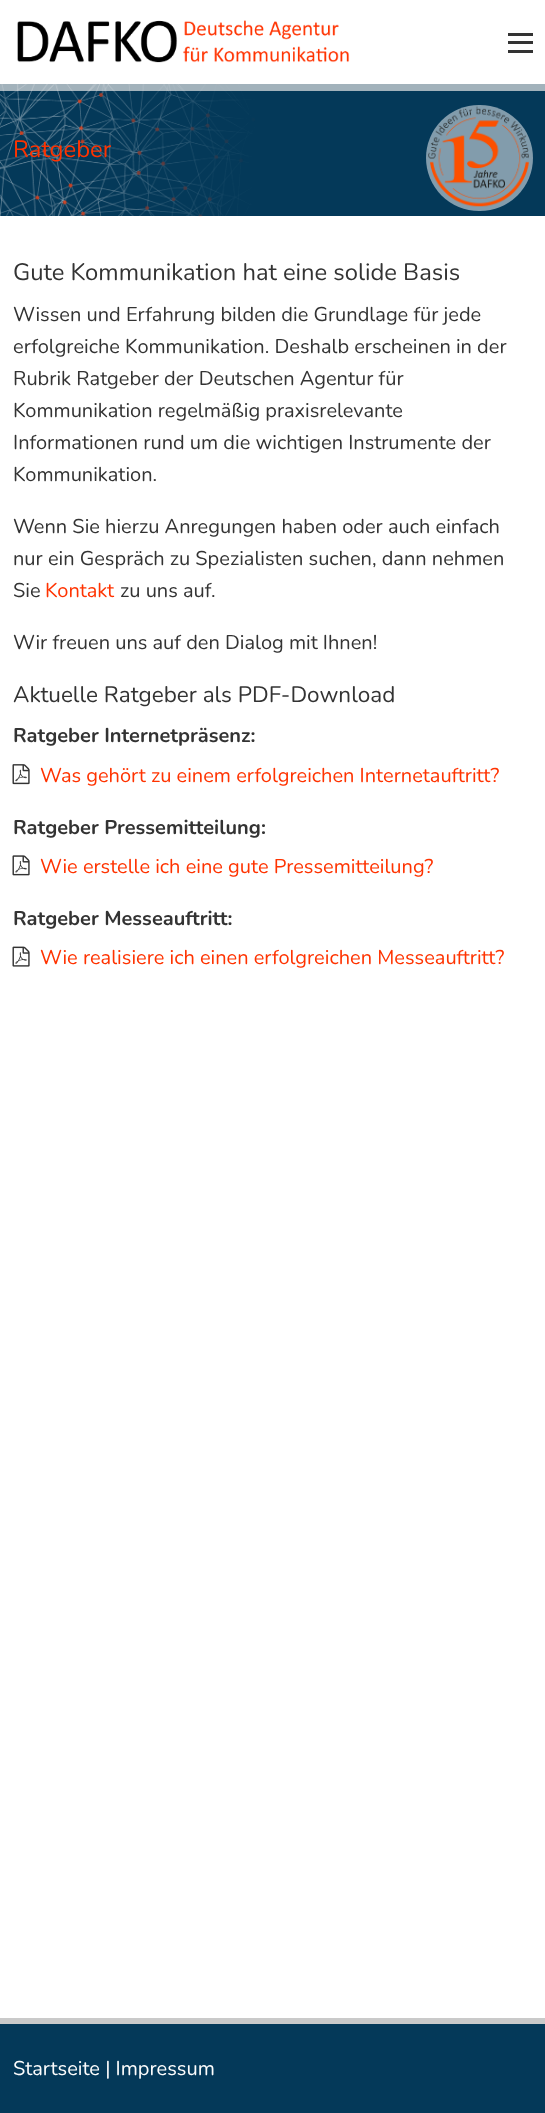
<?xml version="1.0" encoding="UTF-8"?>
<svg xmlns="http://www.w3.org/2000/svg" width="545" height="2113">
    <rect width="100%" height="100%" fill="#FFFFFF"/>
    <image x="17" y="20" width="333" height="43" href="img_01.png"/>
    <rect x="508" y="50" width="25" height="3" fill="#333333"/>
    <rect x="508" y="41" width="25" height="3" fill="#333333"/>
    <rect x="508" y="33" width="25" height="3" fill="#333333"/>
    <rect x="0" y="84" width="545" height="132" fill="#043959"/>
    <image x="0" y="84" width="255" height="133" href="img_02.png"/>
    <rect x="0" y="84" width="545" height="7" fill="#E6E6E6" fill-opacity="0.7"/>
    <text x="13" y="157" font-family="Nunito" font-size="23.75" font-weight="200" fill="#FF3300">Ratgeber</text>
    <rect x="426" y="105" width="107" height="106" rx="53" fill="#829CAC"/>
    <image x="428" y="106" width="101" height="101" href="img_03.png"/>
    <text x="13" y="280" font-family="Nunito" font-size="23.75" font-weight="200" fill="#333333">Gute Kommunikation hat eine solide Basis</text>
    <text font-family="Nunito" font-size="20" font-weight="200" fill="#333333">
        <tspan x="13" y="321">Wissen und Erfahrung bilden die Grundlage für jede</tspan>
        <tspan x="13" y="353">erfolgreiche Kommunikation. Deshalb erscheinen in der</tspan>
        <tspan x="13" y="385">Rubrik Ratgeber der Deutschen Agentur für</tspan>
        <tspan x="13" y="417">Kommunikation regelmäßig praxisrelevante</tspan>
        <tspan x="13" y="449">Informationen rund um die wichtigen Instrumente der</tspan>
        <tspan x="13" y="481">Kommunikation.</tspan>
    </text>
    <text font-family="Nunito" font-size="20" font-weight="200" fill="#333333">
        <tspan x="13" y="533">Wenn Sie hierzu Anregungen haben oder auch einfach</tspan>
        <tspan x="13" y="565">nur ein Gespräch zu Spezialisten suchen, dann nehmen</tspan>
        <tspan x="13" y="597">Sie</tspan>
    </text>
    <text x="45" y="597" font-family="Nunito" font-size="20" font-weight="200" fill="#FF3300">Kontakt</text>
    <text x="120" y="597" font-family="Nunito" font-size="20" font-weight="200" fill="#333333">zu uns auf.</text>
    <text x="13" y="649" font-family="Nunito" font-size="20" font-weight="200" fill="#333333">Wir freuen uns auf den Dialog mit Ihnen!</text>
    <text x="13" y="702" font-family="Nunito" font-size="22.5" font-weight="200" fill="#333333">Aktuelle Ratgeber als PDF-Download</text>
    <text x="13" y="742" font-family="'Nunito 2'" font-size="20" font-weight="200" fill="#333333">Ratgeber Internetpräsenz:</text>
    <image x="12" y="764" width="18" height="21" href="img_04.png"/>
    <text x="40" y="782" font-family="Nunito" font-size="20" font-weight="200" fill="#FF3300">Was gehört zu einem erfolgreichen Internetauftritt?</text>
    <text x="13" y="834" font-family="'Nunito 2'" font-size="20" font-weight="200" fill="#333333">Ratgeber Pressemitteilung:</text>
    <image x="12" y="855" width="18" height="21" href="img_05.png"/>
    <text x="40" y="873" font-family="Nunito" font-size="20" font-weight="200" fill="#FF3300">Wie erstelle ich eine gute Pressemitteilung?</text>
    <text x="13" y="925" font-family="'Nunito 2'" font-size="20" font-weight="200" fill="#333333">Ratgeber Messeauftritt:</text>
    <image x="12" y="946" width="18" height="21" href="img_06.png"/>
    <text x="40" y="964" font-family="Nunito" font-size="20" font-weight="200" fill="#FF3300">Wie realisiere ich einen erfolgreichen Messeauftritt?</text>
    <rect x="0" y="2024" width="545" height="89" fill="#043959"/>
    <rect x="0" y="2018" width="545" height="6" fill="#CACACA"/>
    <text x="13" y="2075" font-family="Nunito" font-size="20" font-weight="200" fill="#FEFEFE">Startseite | Impressum</text>
</svg>
